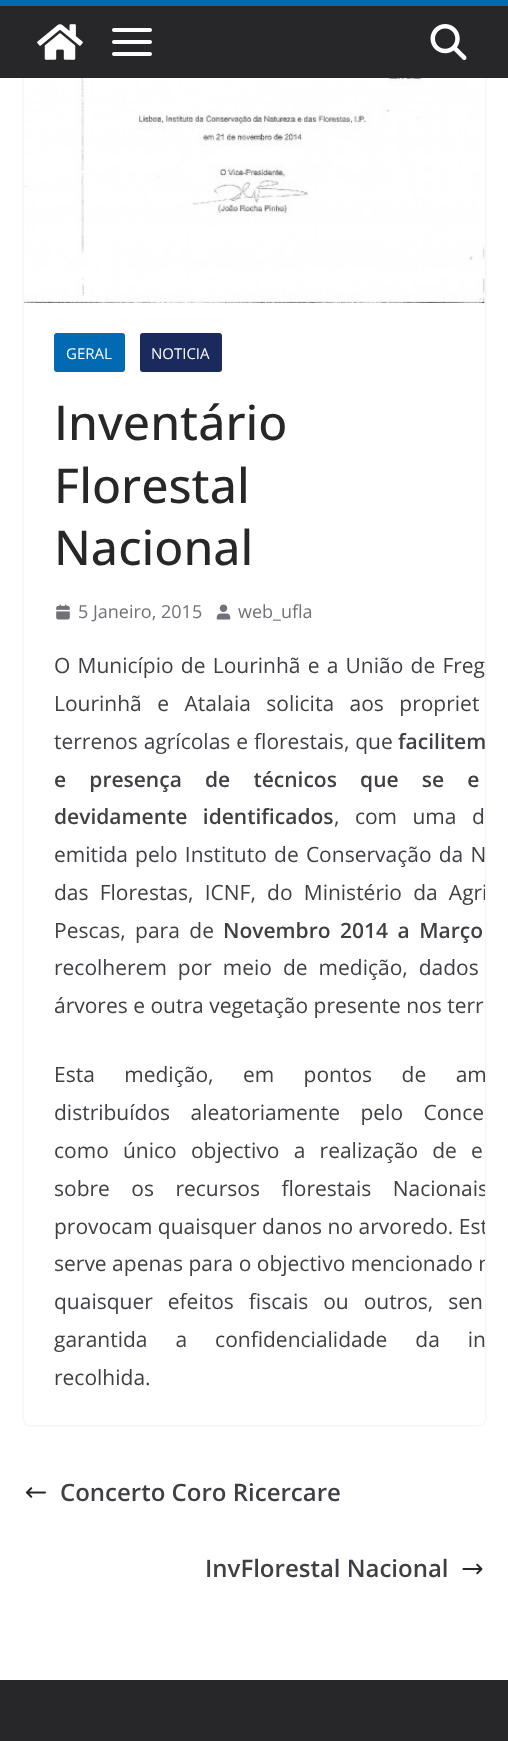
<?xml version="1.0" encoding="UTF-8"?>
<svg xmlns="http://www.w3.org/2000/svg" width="508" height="1741">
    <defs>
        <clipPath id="clip1"><path d="M 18 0 H 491 V 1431 H 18 Z M 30 -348 H 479 C 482.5 -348 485 -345.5 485 -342 V 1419 C 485 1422.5 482.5 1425 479 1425 H 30 C 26.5 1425 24 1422.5 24 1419 V -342 C 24 -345.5 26.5 -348 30 -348 Z" clip-rule="evenodd"/></clipPath>
        <filter id="blur1" x="-50%" y="-200%" width="200%" height="500%"><feGaussianBlur stdDeviation="1.5"/></filter>
        <clipPath id="clip2"><rect x="24" y="-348" width="461" height="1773" rx="6"/></clipPath>
    </defs>
    <rect width="100%" height="100%" fill="#FFFFFF"/>
    <g clip-path="url(#clip1)">
        <rect x="24" y="-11" width="461" height="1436" rx="6" fill="#E4E4E7" filter="url(#blur1)"/>
    </g>
    <rect x="0" y="6" width="508" height="72" fill="#27272A"/>
    <rect x="0" y="0" width="508" height="6" fill="#016AB3"/>
    <image x="37" y="24" width="46" height="36" href="img_01.png"/>
    <image x="112" y="28" width="40" height="28" href="img_02.png"/>
    <image x="430" y="24" width="37" height="36" href="img_03.png"/>
    <image x="24" y="78" width="461" height="225" href="img_04.png"/>
    <rect x="54" y="333" width="71" height="39" rx="3" fill="#016AB3"/>
    <text x="66" y="359" font-family="Open Sans" font-size="15" fill="#FFFFFF">GERAL</text>
    <rect x="140" y="333" width="82" height="39" rx="3" fill="#1A2A5D"/>
    <text x="151" y="359" font-family="Open Sans" font-size="15" fill="#FFFFFF">NOTICIA</text>
    <text font-family="Open Sans" font-size="48" font-weight="500" fill="#27272A">
        <tspan x="54" y="440">Inventário</tspan>
        <tspan x="54" y="503">Florestal</tspan>
        <tspan x="54" y="565">Nacional</tspan>
    </text>
    <image x="56" y="604" width="14" height="16" href="img_05.png"/>
    <text x="78" y="618" font-family="Open Sans" font-size="18" fill="#71717A">5 Janeiro, 2015</text>
    <image x="216" y="604" width="15" height="16" href="img_06.png"/>
    <text x="238" y="618" font-family="Open Sans" font-size="18" fill="#71717A">web_ufla</text>
    <text font-family="Open Sans" font-size="21" fill="#3F3F46">
        <tspan x="54" y="673" word-spacing="1.75">O Município de Lourinhã e a União de Freg</tspan>
        <tspan x="54" y="711" word-spacing="10">Lourinhã e Atalaia solicita aos propriet</tspan>
        <tspan x="54" y="749" word-spacing="0.5">terrenos agrícolas e florestais, que</tspan>
    </text>
    <text x="398" y="749" word-spacing="0.5" font-family="Open Sans" font-size="21" font-weight="600" fill="#3F3F46">facilitem</text>
    <text font-family="Open Sans" font-size="21" font-weight="600" fill="#3F3F46">
        <tspan x="54" y="787" word-spacing="17.75">e presença de técnicos que se e</tspan>
        <tspan x="54" y="824" word-spacing="10">devidamente identificados</tspan>
    </text>
    <text x="334" y="824" word-spacing="10" font-family="Open Sans" font-size="21" fill="#3F3F46">, com uma d</text>
    <text x="54" y="862" word-spacing="1.75" font-family="Open Sans" font-size="21" fill="#3F3F46">emitida pelo Instituto de Conservação da N</text>
    <g clip-path="url(#clip2)">
        <text x="54" y="900" word-spacing="5.75" font-family="Open Sans" font-size="21" fill="#3F3F46">das Florestas, ICNF, do Ministério da Agri</text>
    </g>
    <text x="54" y="938" word-spacing="4" font-family="Open Sans" font-size="21" fill="#3F3F46">Pescas, para de</text>
    <text x="223" y="938" word-spacing="4" font-family="Open Sans" font-size="21" font-weight="600" fill="#3F3F46">Novembro 2014 a Março</text>
    <text font-family="Open Sans" font-size="21" fill="#3F3F46">
        <tspan x="54" y="975" word-spacing="5.5">recolherem por meio de medição, dados</tspan>
        <tspan x="54" y="1013">árvores e outra vegetação presente nos terr</tspan>
    </text>
    <text font-family="Open Sans" font-size="21" fill="#3F3F46">
        <tspan x="54" y="1082" word-spacing="24">Esta medição, em pontos de am</tspan>
        <tspan x="54" y="1120" word-spacing="15">distribuídos aleatoriamente pelo Conce</tspan>
        <tspan x="54" y="1158" word-spacing="8.75">como único objectivo a realização de e</tspan>
    </text>
    <g clip-path="url(#clip2)">
        <text font-family="Open Sans" font-size="21" fill="#3F3F46">
            <tspan x="54" y="1196" word-spacing="16">sobre os recursos florestais Nacionais</tspan>
            <tspan x="54" y="1234">provocam quaisquer danos no arvoredo. Est</tspan>
            <tspan x="54" y="1271">serve apenas para o objectivo mencionado n</tspan>
        </text>
    </g>
    <text font-family="Open Sans" font-size="21" fill="#3F3F46">
        <tspan x="54" y="1309" word-spacing="9.5">quaisquer efeitos fiscais ou outros, sen</tspan>
        <tspan x="54" y="1347" word-spacing="22.5">garantida a confidencialidade da in</tspan>
        <tspan x="54" y="1385">recolhida.</tspan>
    </text>
    <image x="25" y="1487" width="21" height="11" href="img_07.png"/>
    <text x="60" y="1501" font-family="Open Sans" font-size="24" font-weight="600" fill="#3F3F46">Concerto Coro Ricercare</text>
    <text x="205" y="1577" font-family="Open Sans" font-size="24" font-weight="600" fill="#3F3F46">InvFlorestal Nacional</text>
    <image x="462" y="1563" width="21" height="12" href="img_08.png"/>
    <rect x="0" y="1680" width="508" height="61" fill="#27272A"/>
</svg>
